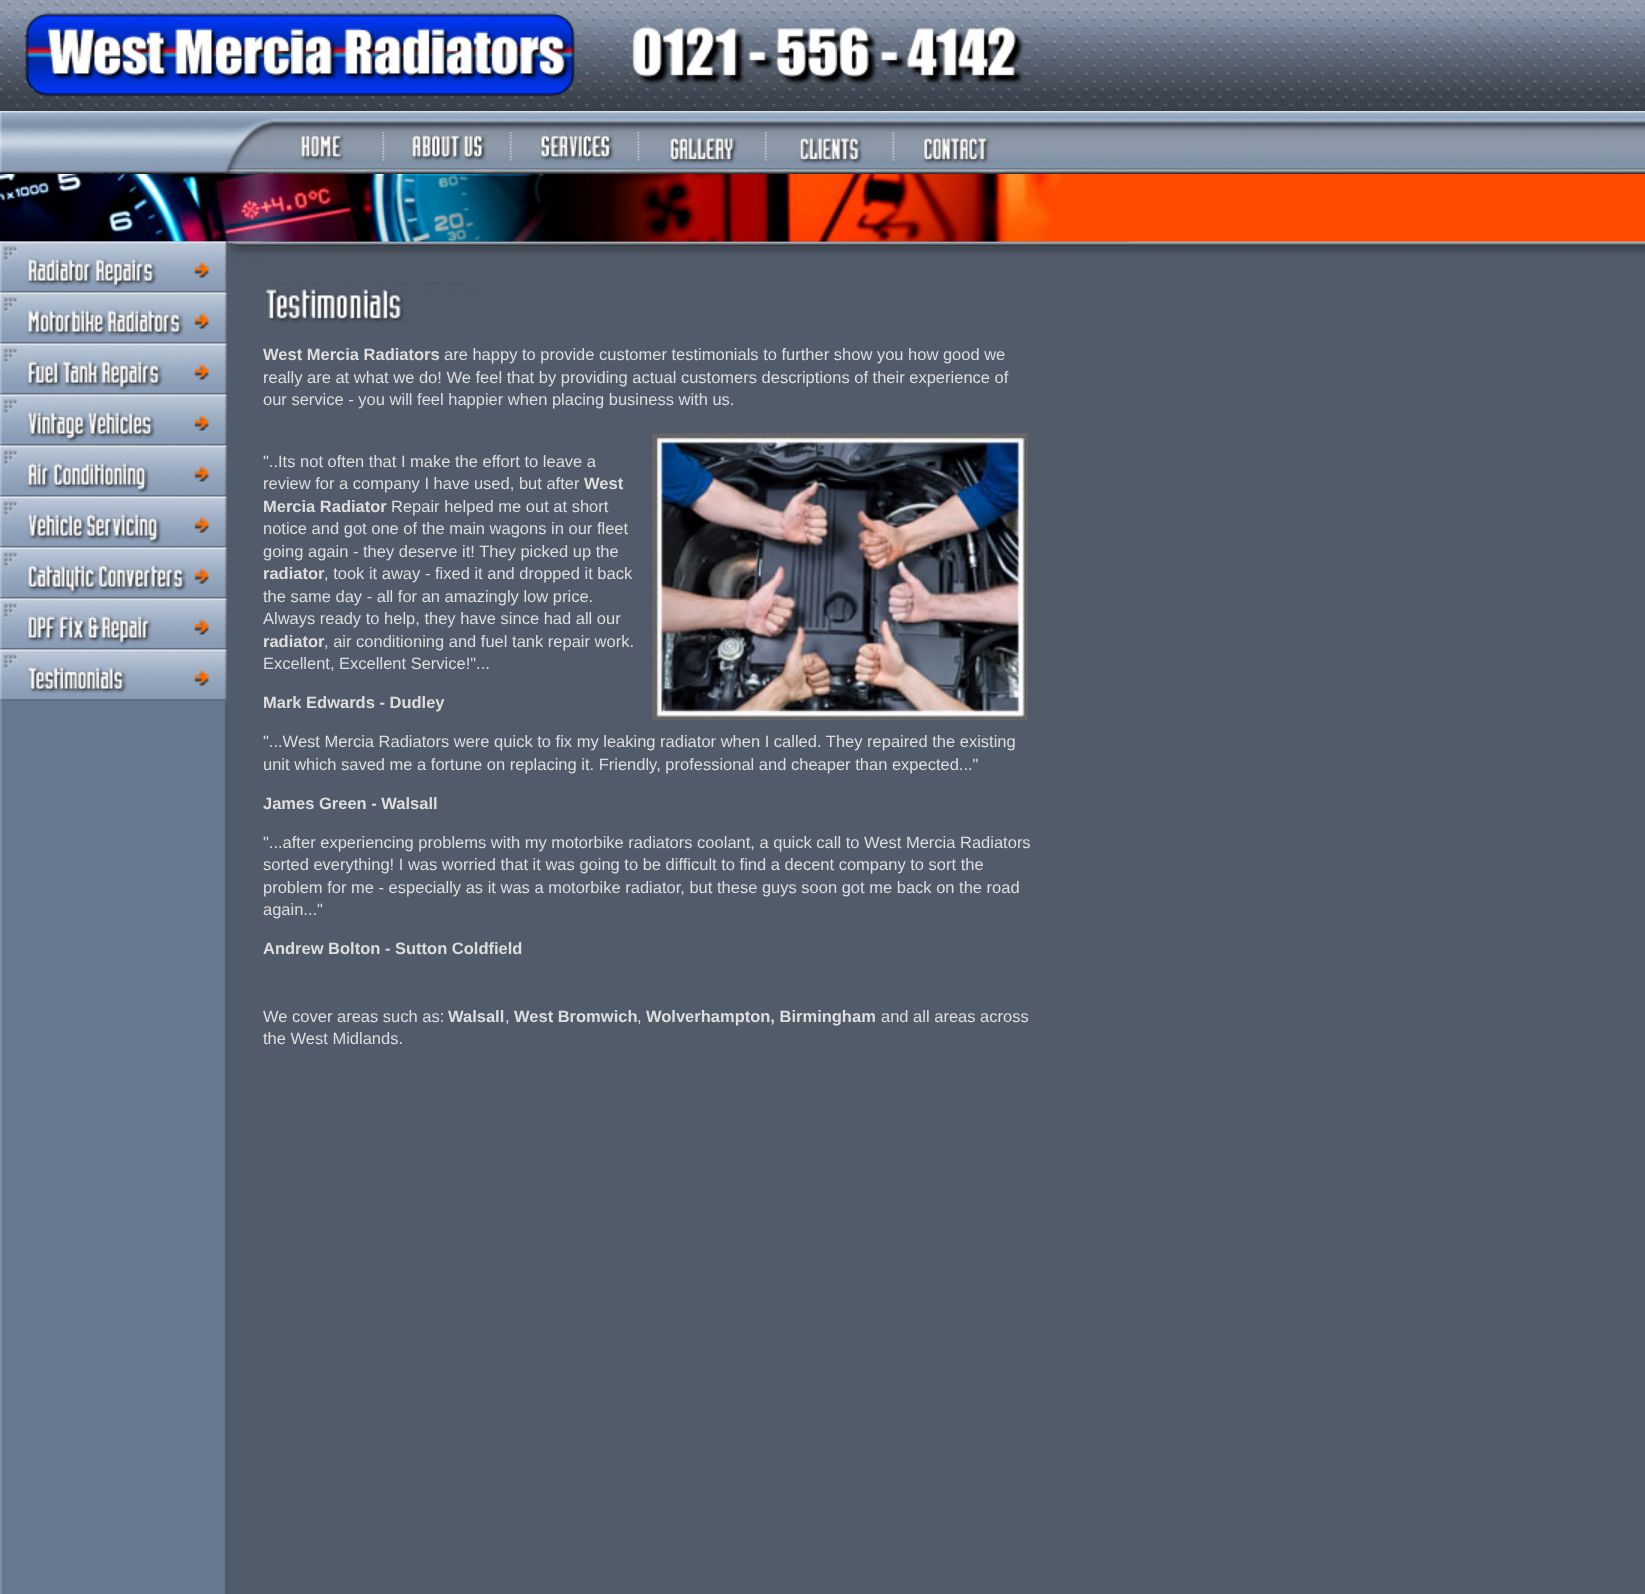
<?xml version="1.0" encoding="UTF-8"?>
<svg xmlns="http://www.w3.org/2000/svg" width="1645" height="1594">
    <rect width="100%" height="100%" fill="#FFFFFF"/>
    <image x="0" y="241" width="1645" height="1353" href="img_01.png"/>
    <image x="0" y="0" width="1050" height="111" href="img_02.png"/>
    <image x="1050" y="0" width="595" height="111" href="img_03.png"/>
    <image x="273" y="111" width="1372" height="63" href="img_04.png"/>
    <image x="0" y="111" width="273" height="63" href="img_05.png"/>
    <image x="300" y="134" width="66" height="40" href="img_06.png"/>
    <image x="370" y="122" width="31" height="52" href="img_07.png"/>
    <image x="411" y="134" width="83" height="40" href="img_08.png"/>
    <image x="499" y="131" width="29" height="43" href="img_09.png"/>
    <image x="540" y="134" width="81" height="40" href="img_10.png"/>
    <image x="626" y="122" width="30" height="52" href="img_11.png"/>
    <image x="668" y="136" width="81" height="38" href="img_12.png"/>
    <image x="748" y="122" width="35" height="52" href="img_13.png"/>
    <image x="794" y="136" width="82" height="38" href="img_14.png"/>
    <image x="880" y="122" width="31" height="52" href="img_15.png"/>
    <image x="922" y="113" width="82" height="61" href="img_16.png"/>
    <rect x="1129" y="174" width="516" height="68" fill="#FF4B00"/>
    <image x="262" y="241" width="773" height="14" href="img_28.png"/>
    <image x="1035" y="241" width="610" height="14" href="img_29.png"/>
    <image x="0" y="174" width="1130" height="68" href="img_17.png"/>
    <image x="0" y="241" width="227" height="52" href="img_18.png"/>
    <image x="0" y="292" width="227" height="52" href="img_19.png"/>
    <image x="0" y="343" width="227" height="52" href="img_20.png"/>
    <image x="0" y="394" width="227" height="52" href="img_21.png"/>
    <image x="0" y="445" width="227" height="52" href="img_22.png"/>
    <image x="0" y="496" width="227" height="52" href="img_23.png"/>
    <image x="0" y="547" width="227" height="52" href="img_24.png"/>
    <image x="0" y="598" width="227" height="52" href="img_25.png"/>
    <image x="0" y="649" width="227" height="52" href="img_26.png"/>
    <image x="226" y="241" width="37" height="41" href="img_27.png"/>
    <image x="263" y="282" width="245" height="41" href="img_30.png"/>
    <text x="263" y="360" font-family="Liberation Sans" font-size="16.5" font-weight="700" fill="#DEDEDE">West Mercia Radiators</text>
    <text x="444" y="360" font-family="Liberation Sans" font-size="16.5" fill="#DEDEDE">are happy to provide customer testimonials to further show you how good we</text>
    <text font-family="Liberation Sans" font-size="16.5" fill="#DEDEDE">
        <tspan x="263" y="383">really are at what we do! We feel that by providing actual customers descriptions of their experience of</tspan>
        <tspan x="263" y="405">our service - you will feel happier when placing business with us.</tspan>
    </text>
    <image x="652" y="433" width="376" height="287" href="img_31.png"/>
    <text font-family="Liberation Sans" font-size="16.5" fill="#DEDEDE">
        <tspan x="263" y="467">"..Its not often that I make the effort to leave a</tspan>
        <tspan x="263" y="489">review for a company I have used, but after</tspan>
    </text>
    <text x="584" y="489" font-family="Liberation Sans" font-size="16.5" font-weight="700" fill="#DEDEDE">West</text>
    <text x="263" y="512" font-family="Liberation Sans" font-size="16.5" font-weight="700" fill="#DEDEDE">Mercia Radiator</text>
    <text x="391" y="512" font-family="Liberation Sans" font-size="16.5" fill="#DEDEDE">Repair helped me out at short</text>
    <text font-family="Liberation Sans" font-size="16.5" fill="#DEDEDE">
        <tspan x="263" y="534">notice and got one of the main wagons in our fleet</tspan>
        <tspan x="263" y="557">going again - they deserve it! They picked up the</tspan>
    </text>
    <text x="263" y="579" font-family="Liberation Sans" font-size="16.5" font-weight="700" fill="#DEDEDE">radiator</text>
    <text x="324" y="579" font-family="Liberation Sans" font-size="16.5" fill="#DEDEDE">, took it away - fixed it and dropped it back</text>
    <text font-family="Liberation Sans" font-size="16.5" fill="#DEDEDE">
        <tspan x="263" y="602">the same day - all for an amazingly low price.</tspan>
        <tspan x="263" y="624">Always ready to help, they have since had all our</tspan>
    </text>
    <text x="263" y="647" font-family="Liberation Sans" font-size="16.5" font-weight="700" fill="#DEDEDE">radiator</text>
    <text x="324" y="647" font-family="Liberation Sans" font-size="16.5" fill="#DEDEDE">, air conditioning and fuel tank repair work.</text>
    <text x="263" y="669" font-family="Liberation Sans" font-size="16.5" fill="#DEDEDE">Excellent, Excellent Service!"...</text>
    <text x="263" y="708" font-family="Liberation Sans" font-size="16.5" font-weight="700" fill="#DEDEDE">Mark Edwards - Dudley</text>
    <text font-family="Liberation Sans" font-size="16.5" fill="#DEDEDE">
        <tspan x="263" y="747">"...West Mercia Radiators were quick to fix my leaking radiator when I called. They repaired the existing</tspan>
        <tspan x="263" y="770">unit which saved me a fortune on replacing it. Friendly, professional and cheaper than expected..."</tspan>
    </text>
    <text x="263" y="809" font-family="Liberation Sans" font-size="16.5" font-weight="700" fill="#DEDEDE">James Green - Walsall</text>
    <text font-family="Liberation Sans" font-size="16.5" fill="#DEDEDE">
        <tspan x="263" y="848">"...after experiencing problems with my motorbike radiators coolant, a quick call to West Mercia Radiators</tspan>
        <tspan x="263" y="870">sorted everything! I was worried that it was going to be difficult to find a decent company to sort the</tspan>
        <tspan x="263" y="893">problem for me - especially as it was a motorbike radiator, but these guys soon got me back on the road</tspan>
        <tspan x="263" y="915">again..."</tspan>
    </text>
    <text x="263" y="954" font-family="Liberation Sans" font-size="16.5" font-weight="700" fill="#DEDEDE">Andrew Bolton - Sutton Coldfield</text>
    <text x="263" y="1022" font-family="Liberation Sans" font-size="16.5" fill="#DEDEDE">We cover areas such as:</text>
    <text x="448" y="1022" font-family="Liberation Sans" font-size="16.5" font-weight="700" fill="#DEDEDE">Walsall</text>
    <text x="505" y="1022" font-family="Liberation Sans" font-size="16.5" fill="#DEDEDE">,</text>
    <text x="514" y="1022" font-family="Liberation Sans" font-size="16.5" font-weight="700" fill="#DEDEDE">West Bromwich</text>
    <text x="637" y="1022" font-family="Liberation Sans" font-size="16.5" fill="#DEDEDE">,</text>
    <text x="646" y="1022" font-family="Liberation Sans" font-size="16.5" font-weight="700" fill="#DEDEDE">Wolverhampton, Birmingham</text>
    <text x="881" y="1022" font-family="Liberation Sans" font-size="16.5" fill="#DEDEDE">and all areas across</text>
    <text x="263" y="1044" font-family="Liberation Sans" font-size="16.5" fill="#DEDEDE">the West Midlands.</text>
</svg>
